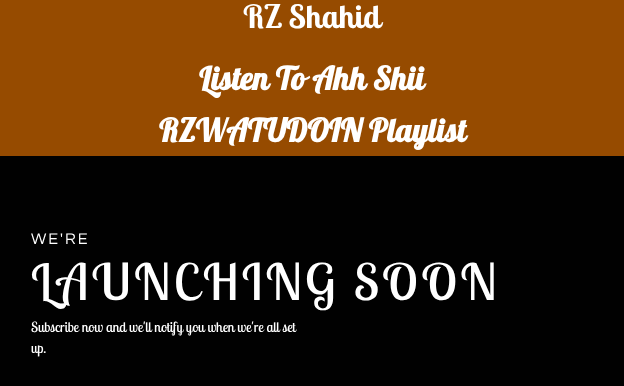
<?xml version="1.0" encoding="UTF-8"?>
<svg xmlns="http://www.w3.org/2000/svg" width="624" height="386">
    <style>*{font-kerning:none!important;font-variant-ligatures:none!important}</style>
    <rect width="100%" height="100%" fill="#010101"/>
    <rect x="0" y="0" width="624" height="156" fill="#964B00"/>
    <text x="243" y="28" font-family="Lobster Two" font-size="32" font-weight="700" fill="#FFFFFF">RZ Shahid</text>
    <text x="199" y="90" font-family="Lobster" font-size="32" font-weight="700" fill="#FFFFFF">Listen To Ahh Shii</text>
    <text x="159" y="142" font-family="Lobster" font-size="32" font-weight="700" fill="#FFFFFF">RZWATUDOIN Playlist</text>
    <text x="31" y="244" font-family="Questrial" font-size="16" letter-spacing="2" fill="#FFFFFF">WE'RE</text>
    <text x="31" y="300" font-family="Lobster Two" font-size="50" letter-spacing="4" fill="#FFFFFF">LAUNCHING SOON</text>
    <text font-family="Lobster Two" font-size="14" fill="#FFFFFF">
        <tspan x="31" y="332">Subscribe now and we'll notify you when we're all set</tspan>
        <tspan x="31" y="353">up.</tspan>
    </text>
</svg>
